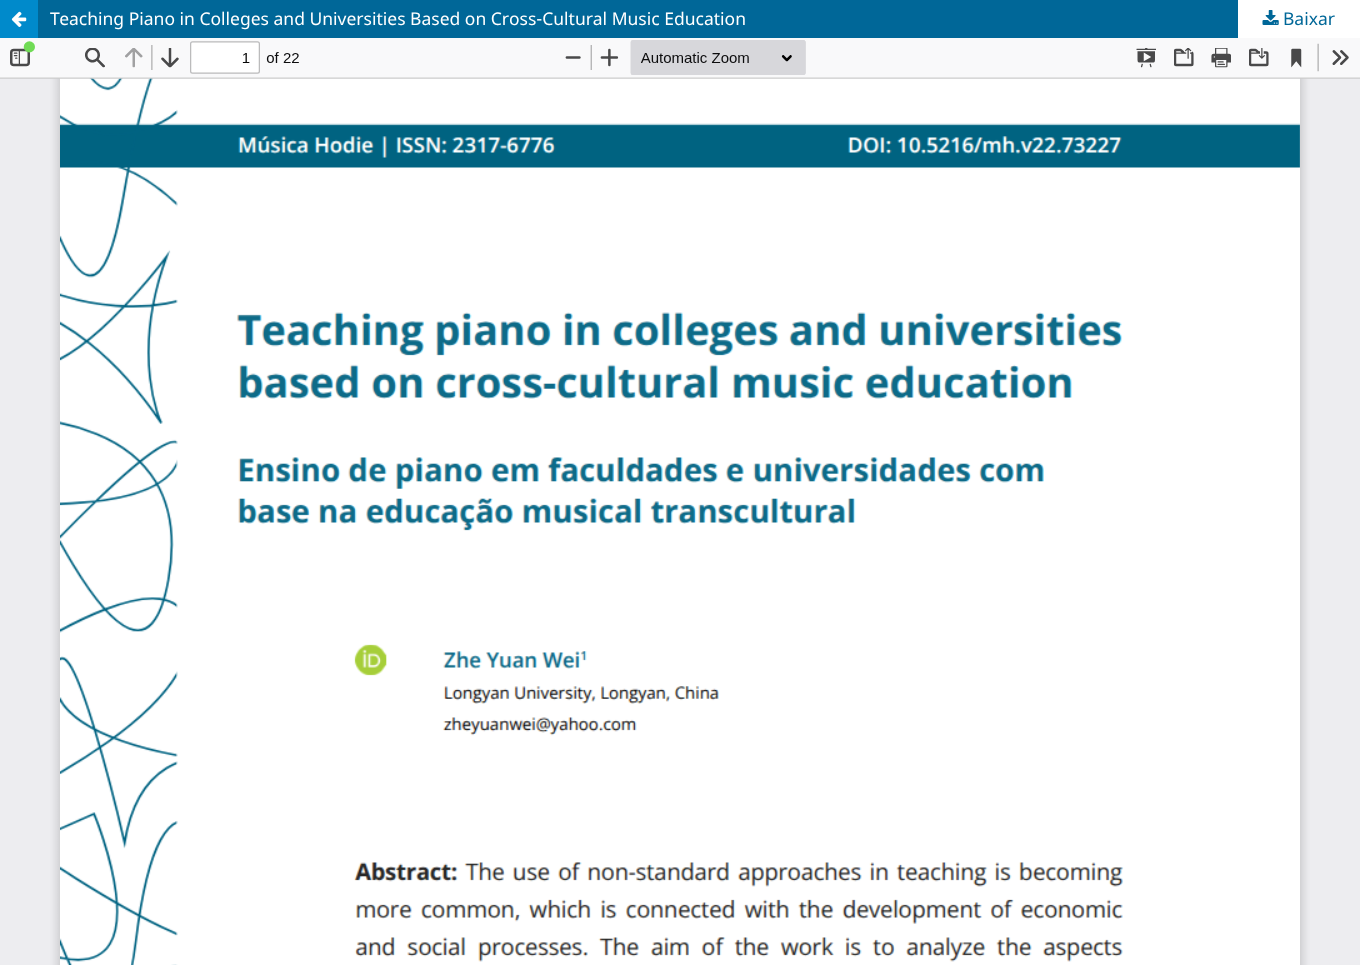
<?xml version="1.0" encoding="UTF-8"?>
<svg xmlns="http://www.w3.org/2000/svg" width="1360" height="965">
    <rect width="100%" height="100%" fill="#FFFFFF"/>
    <rect x="38" y="0" width="1200" height="38" fill="#006798"/>
    <rect x="0" y="0" width="38" height="38" fill="#008ACB"/>
    <image x="11" y="11" width="16" height="16" href="img_01.png"/>
    <text x="50" y="25" font-family="Noto Sans" font-size="17.5" fill="#FFFFFF">Teaching Piano in Colleges and Universities Based on Cross-Cultural Music Education</text>
    <image x="1262" y="10" width="17" height="15" href="img_02.png"/>
    <text x="1283" y="25" font-family="Noto Sans" font-size="17.5" fill="#006798">Baixar</text>
    <image x="0" y="38" width="1360" height="927" href="img_03.png"/>
</svg>
